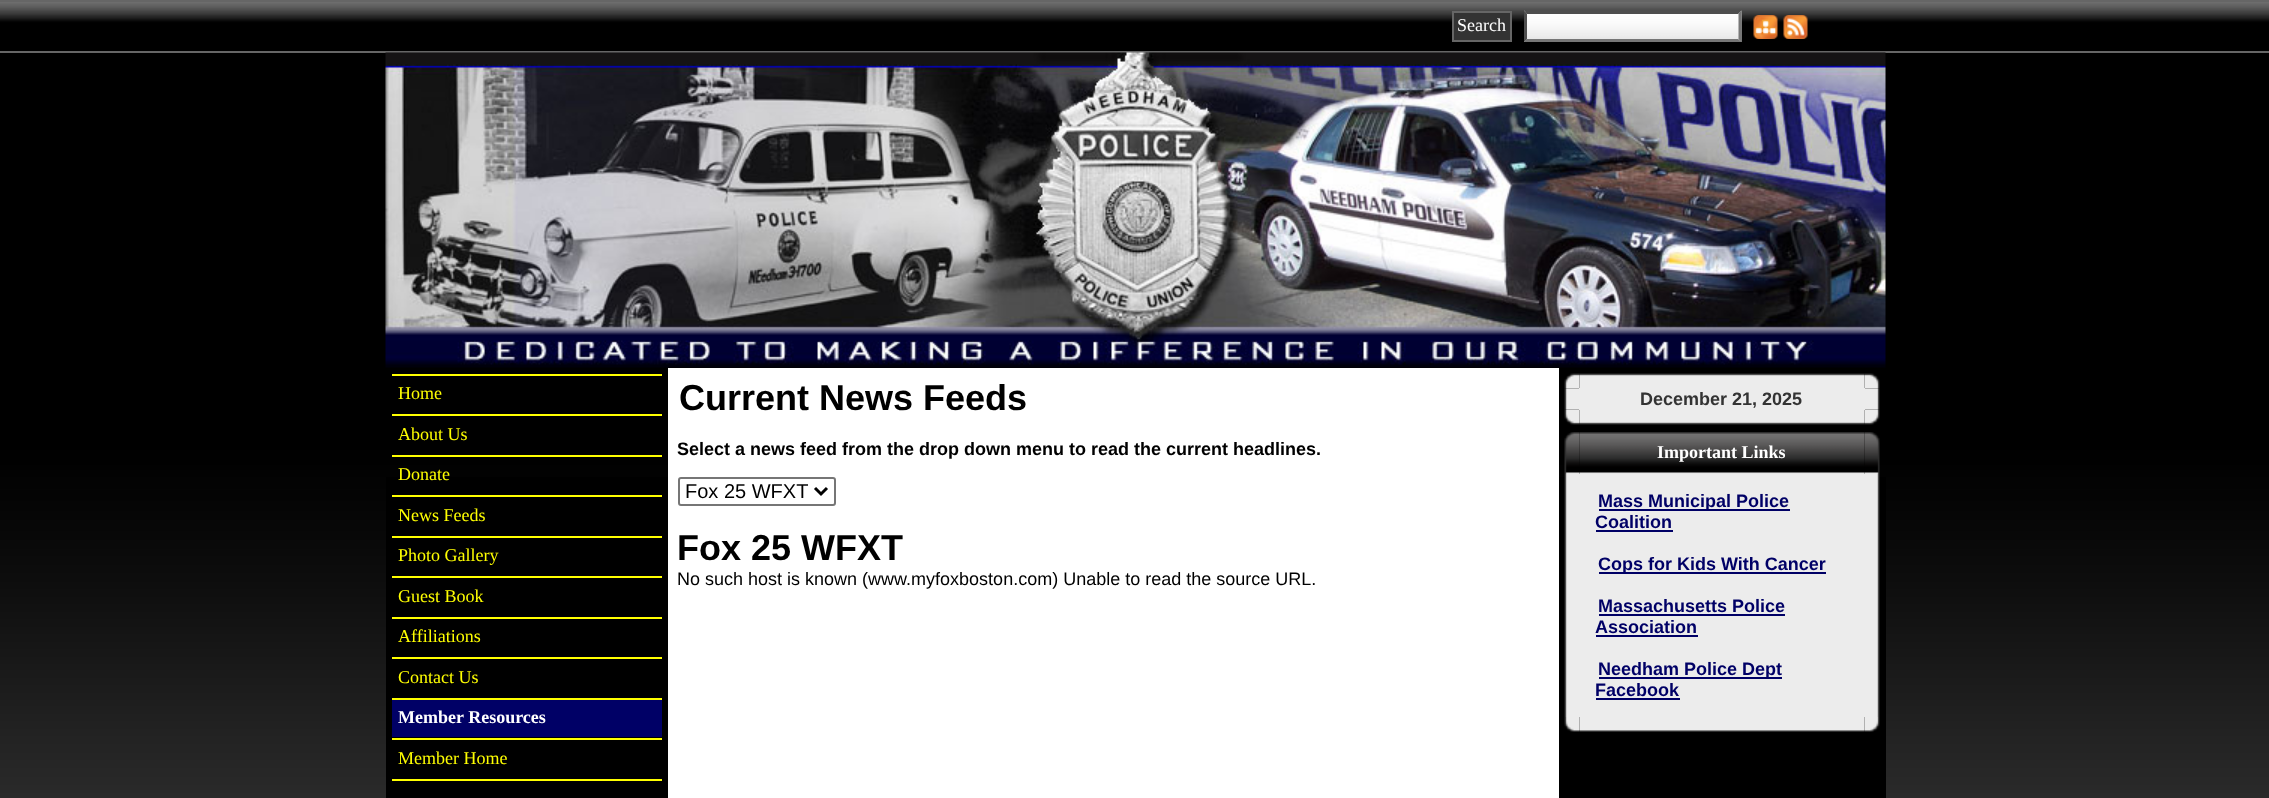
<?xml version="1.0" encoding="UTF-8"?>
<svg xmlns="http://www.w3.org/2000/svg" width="2269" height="798">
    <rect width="100%" height="100%" fill="#FFFFFF"/>
    <image x="0" y="53" width="2269" height="745" href="img_01.png"/>
    <image x="0" y="2" width="2269" height="49" href="img_02.png"/>
    <rect x="0" y="0" width="2269" height="2" fill="#666666"/>
    <rect x="0" y="51" width="2269" height="2" fill="#666666"/>
    <rect x="1453" y="12" width="58" height="29" fill="#333333" stroke="#666666" stroke-width="2"/>
    <text x="1457" y="31" font-family="Liberation Serif" font-size="18" fill="#FFFFFF">Search</text>
    <image x="1524" y="10" width="218" height="32" href="img_03.png"/>
    <path d="M 1524 10 H 1742 L 1738 14 H 1527 Z" fill="#4F4F4F"/>
    <path d="M 1741.5 10.5 V 42 L 1738.5 39 V 13.5 Z" fill="#767676"/>
    <path d="M 1742 42 H 1524 L 1527 39 H 1738 Z" fill="#767676"/>
    <path d="M 1524 42 V 10.5 L 1527 13.5 V 39 Z" fill="#4F4F4F"/>
    <image x="1753" y="15" width="25" height="24" href="img_04.png"/>
    <image x="1783" y="15" width="25" height="24" href="img_05.png"/>
    <image x="385" y="52" width="1501" height="316" href="img_06.png"/>
    <rect x="668" y="368" width="891" height="430" fill="#FFFFFF"/>
    <rect x="386" y="477" width="282" height="321" fill="#000000"/>
    <rect x="392" y="374" width="270" height="2" fill="#FFFF00"/>
    <text x="398" y="399" font-family="Liberation Serif" font-size="18" fill="#FFFF00">Home</text>
    <rect x="392" y="414" width="270" height="2" fill="#FFFF00"/>
    <text x="398" y="440" font-family="Liberation Serif" font-size="18" fill="#FFFF00">About Us</text>
    <rect x="392" y="455" width="270" height="2" fill="#FFFF00"/>
    <text x="398" y="480" font-family="Liberation Serif" font-size="18" fill="#FFFF00">Donate</text>
    <rect x="392" y="495" width="270" height="2" fill="#FFFF00"/>
    <text x="398" y="521" font-family="Liberation Serif" font-size="18" fill="#FFFF00">News Feeds</text>
    <rect x="392" y="536" width="270" height="2" fill="#FFFF00"/>
    <text x="398" y="561" font-family="Liberation Serif" font-size="18" fill="#FFFF00">Photo Gallery</text>
    <rect x="392" y="576" width="270" height="2" fill="#FFFF00"/>
    <text x="398" y="602" font-family="Liberation Serif" font-size="18" fill="#FFFF00">Guest Book</text>
    <rect x="392" y="617" width="270" height="2" fill="#FFFF00"/>
    <text x="398" y="642" font-family="Liberation Serif" font-size="18" fill="#FFFF00">Affiliations</text>
    <rect x="392" y="657" width="270" height="2" fill="#FFFF00"/>
    <text x="398" y="683" font-family="Liberation Serif" font-size="18" fill="#FFFF00">Contact Us</text>
    <rect x="392" y="700" width="270" height="37" fill="#000066"/>
    <rect x="392" y="698" width="270" height="2" fill="#FFFF00"/>
    <text x="398" y="723" font-family="Liberation Serif" font-size="18" font-weight="700" fill="#FFFFFF">Member Resources</text>
    <rect x="392" y="738" width="270" height="2" fill="#FFFF00"/>
    <text x="398" y="764" font-family="Liberation Serif" font-size="18" fill="#FFFF00">Member Home</text>
    <rect x="392" y="779" width="270" height="2" fill="#FFFF00"/>
    <text x="679" y="410" font-family="Liberation Sans" font-size="36" font-weight="700" fill="#000000">Current News Feeds</text>
    <text x="677" y="455" font-family="Liberation Sans" font-size="18" font-weight="700" fill="#000000">Select a news feed from the drop down menu to read the current headlines.</text>
    <rect x="679" y="478" width="156" height="27" rx="2" fill="none" stroke="#767676" stroke-width="2"/>
    <path d="M 815 488 L 821 494 L 827 488" fill="none" stroke="#000000" stroke-width="3"/>
    <text x="685" y="498" font-family="Liberation Sans" font-size="20" fill="#000000">Fox 25 WFXT</text>
    <text x="677" y="560" font-family="Liberation Sans" font-size="36" font-weight="700" fill="#000000">Fox 25 WFXT</text>
    <text x="677" y="585" font-family="Liberation Sans" font-size="18" fill="#000000">No such host is known (www.myfoxboston.com) Unable to read the source URL.</text>
    <rect x="1559" y="477" width="327" height="321" fill="#000000"/>
    <image x="1564" y="373" width="16" height="16" href="img_07.png"/>
    <image x="1579" y="373" width="286" height="15" href="img_08.png"/>
    <image x="1864" y="373" width="16" height="16" href="img_09.png"/>
    <image x="1564" y="388" width="15" height="22" href="img_10.png"/>
    <rect x="1579" y="388" width="286" height="22" fill="#ECECEC"/>
    <text x="1640" y="405" font-family="Liberation Sans" font-size="18" font-weight="700" fill="#333333">December 21, 2025</text>
    <image x="1865" y="388" width="15" height="22" href="img_11.png"/>
    <image x="1564" y="409" width="16" height="16" href="img_12.png"/>
    <image x="1579" y="410" width="286" height="15" href="img_13.png"/>
    <image x="1864" y="409" width="16" height="16" href="img_14.png"/>
    <image x="1564" y="432" width="16" height="42" href="img_15.png"/>
    <image x="1579" y="432" width="286" height="42" href="img_16.png"/>
    <text x="1657" y="458" font-family="Liberation Serif" font-size="18" font-weight="700" fill="#FFFFFF">Important Links</text>
    <image x="1864" y="432" width="16" height="42" href="img_17.png"/>
    <image x="1564" y="474" width="15" height="243" href="img_18.png"/>
    <rect x="1579" y="474" width="286" height="243" fill="#ECECEC"/>
    <rect x="1599" y="509" width="191" height="2" fill="#000066"/>
    <text x="1598" y="507" font-family="Liberation Sans" font-size="18" font-weight="700" fill="#000066">Mass Municipal Police</text>
    <text x="1595" y="528" font-family="Liberation Sans" font-size="18" font-weight="700" fill="#000066">Coalition</text>
    <rect x="1596" y="530" width="77" height="2" fill="#000066"/>
    <rect x="1599" y="572" width="227" height="2" fill="#000066"/>
    <text x="1598" y="570" font-family="Liberation Sans" font-size="18" font-weight="700" fill="#000066">Cops for Kids With Cancer</text>
    <text x="1598" y="612" font-family="Liberation Sans" font-size="18" font-weight="700" fill="#000066">Massachusetts Police</text>
    <rect x="1599" y="614" width="186" height="2" fill="#000066"/>
    <text x="1595" y="633" font-family="Liberation Sans" font-size="18" font-weight="700" fill="#000066">Association</text>
    <rect x="1596" y="635" width="102" height="2" fill="#000066"/>
    <rect x="1599" y="677" width="183" height="2" fill="#000066"/>
    <text x="1598" y="675" font-family="Liberation Sans" font-size="18" font-weight="700" fill="#000066">Needham Police Dept</text>
    <text x="1595" y="696" font-family="Liberation Sans" font-size="18" font-weight="700" fill="#000066">Facebook</text>
    <rect x="1596" y="698" width="84" height="2" fill="#000066"/>
    <image x="1865" y="474" width="15" height="243" href="img_19.png"/>
    <image x="1564" y="717" width="16" height="15" href="img_20.png"/>
    <image x="1579" y="717" width="286" height="15" href="img_21.png"/>
    <image x="1864" y="717" width="16" height="15" href="img_22.png"/>
</svg>
